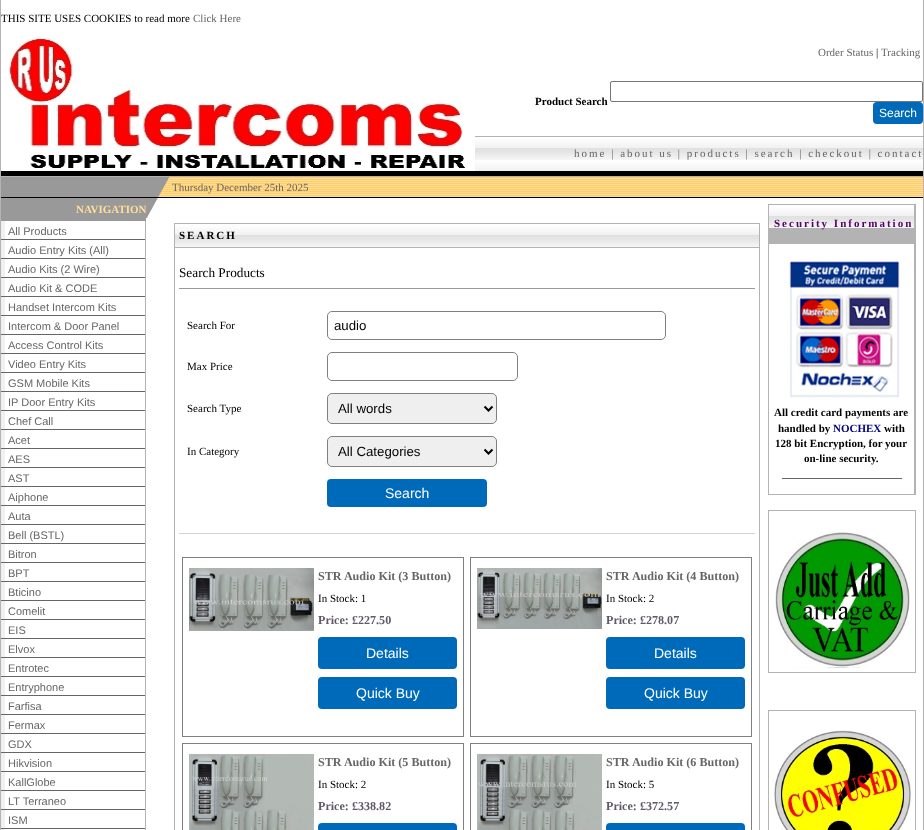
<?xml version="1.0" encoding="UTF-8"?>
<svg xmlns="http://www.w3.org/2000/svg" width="924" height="830">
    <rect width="100%" height="100%" fill="#FFFFFF"/>
    <rect x="923" y="0" width="1" height="830" fill="#B3B3B3"/>
    <rect x="0" y="176" width="924" height="1" fill="#B3B3B3"/>
    <rect x="0" y="0" width="1" height="830" fill="#B3B3B3"/>
    <text x="1" y="22" font-family="Liberation Serif" font-size="11" fill="#000000">THIS SITE USES COOKIES to read more</text>
    <text x="193" y="22" font-family="Liberation Serif" font-size="11" fill="#666666">Click Here</text>
    <image x="8" y="38" width="457" height="130" href="img_01.png"/>
    <text x="818" y="56" font-family="Liberation Serif" font-size="11" fill="#666666">Order Status</text>
    <text x="876" y="56" font-family="Liberation Serif" font-size="11" fill="#000000">|</text>
    <text x="881" y="56" font-family="Liberation Serif" font-size="11" fill="#666666">Tracking</text>
    <text x="535" y="105" font-family="Liberation Serif" font-size="11" font-weight="700" fill="#000000">Product Search</text>
    <rect x="610.5" y="81.5" width="312" height="20" rx="1.5" fill="none" stroke="#767676"/>
    <rect x="873" y="102" width="50" height="22" rx="4" fill="#006ABA"/>
    <text x="879" y="117" font-family="Liberation Sans" font-size="12" fill="#FFFFFF">Search</text>
    <image x="475" y="137" width="448" height="34" href="img_02.png"/>
    <rect x="475" y="136" width="448" height="1" fill="#B3B3B3"/>
    <text x="574" y="157" font-family="Liberation Serif" font-size="11" letter-spacing="2" fill="#666666">home | about us | products | search | checkout | contact</text>
    <rect x="1" y="171" width="922" height="5" fill="#000000"/>
    <rect x="1" y="177" width="145" height="20" fill="#999999"/>
    <image x="170" y="177" width="2" height="20" href="img_03.png"/>
    <image x="146" y="177" width="24" height="20" href="img_04.png"/>
    <rect x="172" y="177" width="751" height="1" fill="#FFCC66"/>
    <image x="172" y="178" width="751" height="19" href="img_05.png"/>
    <text x="172" y="191" font-family="Liberation Serif" font-size="11" fill="#666666">Thursday December 25th 2025</text>
    <rect x="1" y="197" width="922" height="1" fill="#000000"/>
    <rect x="1" y="198" width="145" height="23" fill="#999999"/>
    <text x="76" y="213" font-family="Liberation Serif" font-size="11" font-weight="700" fill="#FFDE9B">NAVIGATION</text>
    <image x="146" y="198" width="12" height="20" href="img_06.png"/>
    <rect x="768" y="204" width="148" height="291" fill="#B3B3B3"/>
    <image x="769" y="205" width="145" height="23" href="img_07.png"/>
    <text x="774" y="227" font-family="Liberation Serif" font-size="11" font-weight="700" letter-spacing="2" fill="#520066">Security Information</text>
    <rect x="769" y="244" width="145" height="250" fill="#FFFFFF"/>
    <image x="789" y="261" width="111" height="137" href="img_08.png"/>
    <text x="774" y="416" font-family="Liberation Serif" font-size="11" font-weight="700" fill="#000000">All credit card payments are</text>
    <text x="778" y="432" font-family="Liberation Serif" font-size="11" font-weight="700" fill="#000000">handled by</text>
    <text x="833" y="432" font-family="Liberation Serif" font-size="11" font-weight="700" fill="#000080">NOCHEX</text>
    <text x="884" y="432" font-family="Liberation Serif" font-size="11" font-weight="700" fill="#000000">with</text>
    <text x="775" y="447" font-family="Liberation Serif" font-size="11" font-weight="700" fill="#000000">128 bit Encryption, for your</text>
    <text x="804" y="462" font-family="Liberation Serif" font-size="11" font-weight="700" fill="#000000">on-line security.</text>
    <rect x="782" y="478" width="120" height="1" fill="#666666"/>
    <rect x="768" y="510" width="148" height="163" fill="#B3B3B3"/>
    <rect x="769" y="511" width="146" height="161" fill="#FFFFFF"/>
    <image x="775" y="532" width="135" height="136" href="img_09.png"/>
    <rect x="768" y="710" width="148" height="120" fill="#B3B3B3"/>
    <rect x="769" y="711" width="146" height="119" fill="#FFFFFF"/>
    <image x="774" y="730" width="137" height="100" href="img_10.png"/>
    <rect x="145" y="221" width="1" height="609" fill="#B3B3B3"/>
    <rect x="1" y="239" width="144" height="1" fill="#666666"/>
    <rect x="1" y="221" width="4" height="18" fill="#F0F0F0"/>
    <text x="8" y="235" font-family="Liberation Sans" font-size="11" fill="#666666">All Products</text>
    <rect x="1" y="258" width="144" height="1" fill="#666666"/>
    <rect x="1" y="240" width="4" height="18" fill="#F0F0F0"/>
    <text x="8" y="254" font-family="Liberation Sans" font-size="11" fill="#666666">Audio Entry Kits (All)</text>
    <rect x="1" y="277" width="144" height="1" fill="#666666"/>
    <rect x="1" y="259" width="4" height="18" fill="#F0F0F0"/>
    <text x="8" y="273" font-family="Liberation Sans" font-size="11" fill="#666666">Audio Kits (2 Wire)</text>
    <rect x="1" y="296" width="144" height="1" fill="#666666"/>
    <rect x="1" y="278" width="4" height="18" fill="#F0F0F0"/>
    <text x="8" y="292" font-family="Liberation Sans" font-size="11" fill="#666666">Audio Kit &amp; CODE</text>
    <rect x="1" y="315" width="144" height="1" fill="#666666"/>
    <rect x="1" y="297" width="4" height="18" fill="#F0F0F0"/>
    <text x="8" y="311" font-family="Liberation Sans" font-size="11" fill="#666666">Handset Intercom Kits</text>
    <rect x="1" y="334" width="144" height="1" fill="#666666"/>
    <rect x="1" y="316" width="4" height="18" fill="#F0F0F0"/>
    <text x="8" y="330" font-family="Liberation Sans" font-size="11" fill="#666666">Intercom &amp; Door Panel</text>
    <rect x="1" y="353" width="144" height="1" fill="#666666"/>
    <rect x="1" y="335" width="4" height="18" fill="#F0F0F0"/>
    <text x="8" y="349" font-family="Liberation Sans" font-size="11" fill="#666666">Access Control Kits</text>
    <rect x="1" y="372" width="144" height="1" fill="#666666"/>
    <rect x="1" y="354" width="4" height="18" fill="#F0F0F0"/>
    <text x="8" y="368" font-family="Liberation Sans" font-size="11" fill="#666666">Video Entry Kits</text>
    <rect x="1" y="391" width="144" height="1" fill="#666666"/>
    <rect x="1" y="373" width="4" height="18" fill="#F0F0F0"/>
    <text x="8" y="387" font-family="Liberation Sans" font-size="11" fill="#666666">GSM Mobile Kits</text>
    <rect x="1" y="410" width="144" height="1" fill="#666666"/>
    <rect x="1" y="392" width="4" height="18" fill="#F0F0F0"/>
    <text x="8" y="406" font-family="Liberation Sans" font-size="11" fill="#666666">IP Door Entry Kits</text>
    <rect x="1" y="429" width="144" height="1" fill="#666666"/>
    <rect x="1" y="411" width="4" height="18" fill="#F0F0F0"/>
    <text x="8" y="425" font-family="Liberation Sans" font-size="11" fill="#666666">Chef Call</text>
    <rect x="1" y="448" width="144" height="1" fill="#666666"/>
    <rect x="1" y="430" width="4" height="18" fill="#F0F0F0"/>
    <text x="8" y="444" font-family="Liberation Sans" font-size="11" fill="#666666">Acet</text>
    <rect x="1" y="467" width="144" height="1" fill="#666666"/>
    <rect x="1" y="449" width="4" height="18" fill="#F0F0F0"/>
    <text x="8" y="463" font-family="Liberation Sans" font-size="11" fill="#666666">AES</text>
    <rect x="1" y="486" width="144" height="1" fill="#666666"/>
    <rect x="1" y="468" width="4" height="18" fill="#F0F0F0"/>
    <text x="8" y="482" font-family="Liberation Sans" font-size="11" fill="#666666">AST</text>
    <rect x="1" y="505" width="144" height="1" fill="#666666"/>
    <rect x="1" y="487" width="4" height="18" fill="#F0F0F0"/>
    <text x="8" y="501" font-family="Liberation Sans" font-size="11" fill="#666666">Aiphone</text>
    <rect x="1" y="524" width="144" height="1" fill="#666666"/>
    <rect x="1" y="506" width="4" height="18" fill="#F0F0F0"/>
    <text x="8" y="520" font-family="Liberation Sans" font-size="11" fill="#666666">Auta</text>
    <rect x="1" y="543" width="144" height="1" fill="#666666"/>
    <rect x="1" y="525" width="4" height="18" fill="#F0F0F0"/>
    <text x="8" y="539" font-family="Liberation Sans" font-size="11" fill="#666666">Bell (BSTL)</text>
    <rect x="1" y="562" width="144" height="1" fill="#666666"/>
    <rect x="1" y="544" width="4" height="18" fill="#F0F0F0"/>
    <text x="8" y="558" font-family="Liberation Sans" font-size="11" fill="#666666">Bitron</text>
    <rect x="1" y="581" width="144" height="1" fill="#666666"/>
    <rect x="1" y="563" width="4" height="18" fill="#F0F0F0"/>
    <text x="8" y="577" font-family="Liberation Sans" font-size="11" fill="#666666">BPT</text>
    <rect x="1" y="600" width="144" height="1" fill="#666666"/>
    <rect x="1" y="582" width="4" height="18" fill="#F0F0F0"/>
    <text x="8" y="596" font-family="Liberation Sans" font-size="11" fill="#666666">Bticino</text>
    <rect x="1" y="619" width="144" height="1" fill="#666666"/>
    <rect x="1" y="601" width="4" height="18" fill="#F0F0F0"/>
    <text x="8" y="615" font-family="Liberation Sans" font-size="11" fill="#666666">Comelit</text>
    <rect x="1" y="638" width="144" height="1" fill="#666666"/>
    <rect x="1" y="620" width="4" height="18" fill="#F0F0F0"/>
    <text x="8" y="634" font-family="Liberation Sans" font-size="11" fill="#666666">EIS</text>
    <rect x="1" y="657" width="144" height="1" fill="#666666"/>
    <rect x="1" y="639" width="4" height="18" fill="#F0F0F0"/>
    <text x="8" y="653" font-family="Liberation Sans" font-size="11" fill="#666666">Elvox</text>
    <rect x="1" y="676" width="144" height="1" fill="#666666"/>
    <rect x="1" y="658" width="4" height="18" fill="#F0F0F0"/>
    <text x="8" y="672" font-family="Liberation Sans" font-size="11" fill="#666666">Entrotec</text>
    <rect x="1" y="695" width="144" height="1" fill="#666666"/>
    <rect x="1" y="677" width="4" height="18" fill="#F0F0F0"/>
    <text x="8" y="691" font-family="Liberation Sans" font-size="11" fill="#666666">Entryphone</text>
    <rect x="1" y="714" width="144" height="1" fill="#666666"/>
    <rect x="1" y="696" width="4" height="18" fill="#F0F0F0"/>
    <text x="8" y="710" font-family="Liberation Sans" font-size="11" fill="#666666">Farfisa</text>
    <rect x="1" y="733" width="144" height="1" fill="#666666"/>
    <rect x="1" y="715" width="4" height="18" fill="#F0F0F0"/>
    <text x="8" y="729" font-family="Liberation Sans" font-size="11" fill="#666666">Fermax</text>
    <rect x="1" y="752" width="144" height="1" fill="#666666"/>
    <rect x="1" y="734" width="4" height="18" fill="#F0F0F0"/>
    <text x="8" y="748" font-family="Liberation Sans" font-size="11" fill="#666666">GDX</text>
    <rect x="1" y="771" width="144" height="1" fill="#666666"/>
    <rect x="1" y="753" width="4" height="18" fill="#F0F0F0"/>
    <text x="8" y="767" font-family="Liberation Sans" font-size="11" fill="#666666">Hikvision</text>
    <rect x="1" y="790" width="144" height="1" fill="#666666"/>
    <rect x="1" y="772" width="4" height="18" fill="#F0F0F0"/>
    <text x="8" y="786" font-family="Liberation Sans" font-size="11" fill="#666666">KallGlobe</text>
    <rect x="1" y="809" width="144" height="1" fill="#666666"/>
    <rect x="1" y="791" width="4" height="18" fill="#F0F0F0"/>
    <text x="8" y="805" font-family="Liberation Sans" font-size="11" fill="#666666">LT Terraneo</text>
    <rect x="1" y="828" width="144" height="1" fill="#666666"/>
    <rect x="1" y="810" width="4" height="18" fill="#F0F0F0"/>
    <text x="8" y="824" font-family="Liberation Sans" font-size="11" fill="#666666">ISM</text>
    <rect x="1" y="829" width="4" height="1" fill="#F0F0F0"/>
    <rect x="174" y="223" width="586" height="607" fill="#B3B3B3"/>
    <image x="175" y="224" width="584" height="23" href="img_11.png"/>
    <text x="179" y="239" font-family="Liberation Serif" font-size="11" font-weight="700" letter-spacing="2" fill="#000000">SEARCH</text>
    <rect x="175" y="248" width="584" height="582" fill="#FFFFFF"/>
    <rect x="179" y="288" width="576" height="1" fill="#999999"/>
    <text x="179" y="277" font-family="Liberation Serif" font-size="13.25" fill="#000000">Search Products</text>
    <text x="187" y="329" font-family="Liberation Serif" font-size="11" fill="#000000">Search For</text>
    <rect x="327.5" y="311.5" width="338" height="28" rx="4.5" fill="none" stroke="#808080"/>
    <text x="334" y="330" font-family="Liberation Sans" font-size="13.25" fill="#000000">audio</text>
    <text x="187" y="370" font-family="Liberation Serif" font-size="11" fill="#000000">Max Price</text>
    <rect x="327.5" y="352.5" width="190" height="28" rx="4.5" fill="none" stroke="#808080"/>
    <text x="187" y="412" font-family="Liberation Serif" font-size="11" fill="#000000">Search Type</text>
    <rect x="327.5" y="393.5" width="169" height="30" rx="4.5" fill="#EFEFEF" stroke="#808080"/>
    <path d="M 484.5 406.5 L 488.5 410.5 L 492.5 406.5" fill="none" stroke="#000000" stroke-width="2"/>
    <text x="338" y="413" font-family="Liberation Sans" font-size="13.25" fill="#000000">All words</text>
    <text x="187" y="455" font-family="Liberation Serif" font-size="11" fill="#000000">In Category</text>
    <rect x="327.5" y="436.5" width="169" height="30" rx="4.5" fill="#EFEFEF" stroke="#808080"/>
    <path d="M 484.5 449.5 L 488.5 453.5 L 492.5 449.5" fill="none" stroke="#000000" stroke-width="2"/>
    <text x="338" y="456" font-family="Liberation Sans" font-size="13.25" fill="#000000">All Categories</text>
    <rect x="327" y="479" width="160" height="28" rx="4" fill="#006ABA"/>
    <text x="385" y="498" font-family="Liberation Sans" font-size="14" fill="#FFFFFF">Search</text>
    <rect x="179" y="533" width="576" height="1" fill="#D3D3D3"/>
    <rect x="182.5" y="557.5" width="281" height="179" fill="none" stroke="#808080"/>
    <image x="189" y="568" width="125" height="63" href="img_12.png"/>
    <text x="318" y="580" font-family="Liberation Serif" font-size="12.1" font-weight="700" fill="#666666">STR Audio Kit (3 Button)</text>
    <text x="318" y="602" font-family="Liberation Serif" font-size="11" fill="#000000">In Stock: 1</text>
    <text x="318" y="624" font-family="Liberation Serif" font-size="12.1" font-weight="700" fill="#60596A">Price: £227.50</text>
    <rect x="318" y="637" width="139" height="32" rx="4" fill="#006ABA"/>
    <text x="366" y="658" font-family="Liberation Sans" font-size="14" fill="#FFFFFF">Details</text>
    <rect x="318" y="677" width="139" height="32" rx="4" fill="#006ABA"/>
    <text x="356" y="698" font-family="Liberation Sans" font-size="14" fill="#FFFFFF">Quick Buy</text>
    <rect x="470.5" y="557.5" width="281" height="179" fill="none" stroke="#808080"/>
    <image x="477" y="568" width="125" height="61" href="img_13.png"/>
    <text x="606" y="580" font-family="Liberation Serif" font-size="12.1" font-weight="700" fill="#666666">STR Audio Kit (4 Button)</text>
    <text x="606" y="602" font-family="Liberation Serif" font-size="11" fill="#000000">In Stock: 2</text>
    <text x="606" y="624" font-family="Liberation Serif" font-size="12.1" font-weight="700" fill="#60596A">Price: £278.07</text>
    <rect x="606" y="637" width="139" height="32" rx="4" fill="#006ABA"/>
    <text x="654" y="658" font-family="Liberation Sans" font-size="14" fill="#FFFFFF">Details</text>
    <rect x="606" y="677" width="139" height="32" rx="4" fill="#006ABA"/>
    <text x="644" y="698" font-family="Liberation Sans" font-size="14" fill="#FFFFFF">Quick Buy</text>
    <rect x="182.5" y="743.5" width="281" height="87" fill="none" stroke="#808080"/>
    <image x="189" y="754" width="125" height="76" href="img_14.png"/>
    <text x="318" y="766" font-family="Liberation Serif" font-size="12.1" font-weight="700" fill="#666666">STR Audio Kit (5 Button)</text>
    <text x="318" y="788" font-family="Liberation Serif" font-size="11" fill="#000000">In Stock: 2</text>
    <text x="318" y="810" font-family="Liberation Serif" font-size="12.1" font-weight="700" fill="#60596A">Price: £338.82</text>
    <rect x="318" y="823" width="139" height="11" rx="4" fill="#006ABA"/>
    <rect x="470.5" y="743.5" width="281" height="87" fill="none" stroke="#808080"/>
    <image x="477" y="754" width="125" height="76" href="img_15.png"/>
    <text x="606" y="766" font-family="Liberation Serif" font-size="12.1" font-weight="700" fill="#666666">STR Audio Kit (6 Button)</text>
    <text x="606" y="788" font-family="Liberation Serif" font-size="11" fill="#000000">In Stock: 5</text>
    <text x="606" y="810" font-family="Liberation Serif" font-size="12.1" font-weight="700" fill="#60596A">Price: £372.57</text>
    <rect x="606" y="823" width="139" height="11" rx="4" fill="#006ABA"/>
</svg>
